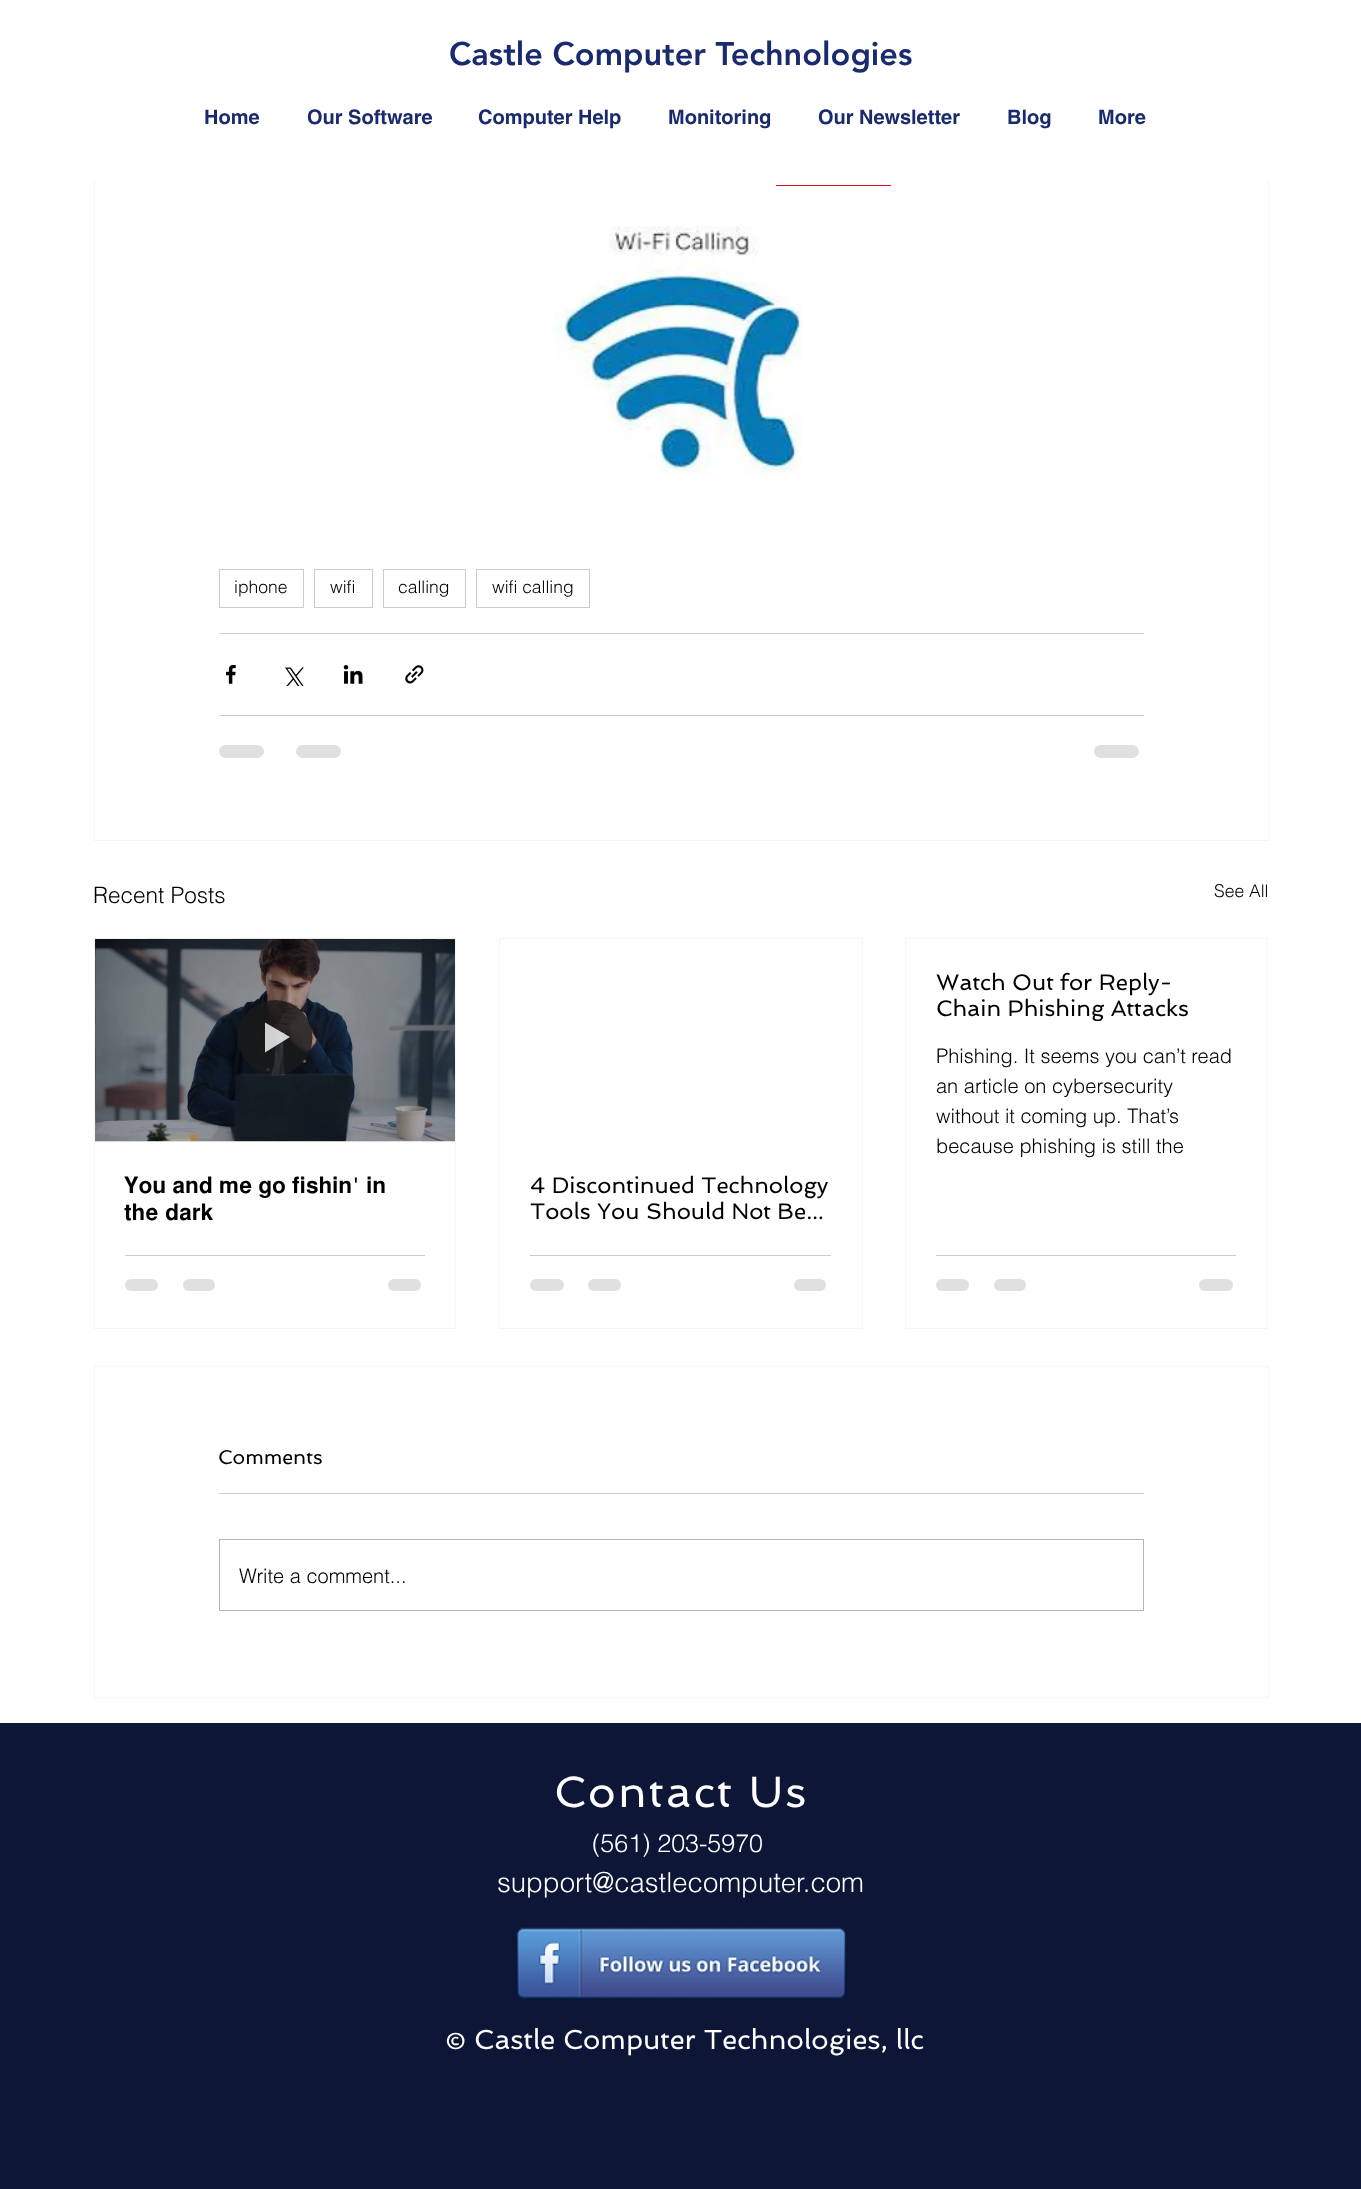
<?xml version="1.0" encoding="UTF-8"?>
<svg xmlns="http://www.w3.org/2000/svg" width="1361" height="2189">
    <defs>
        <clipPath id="clip1"><rect x="936" y="969" width="300" height="52"/></clipPath>
        <clipPath id="clip2"><rect x="238" y="1000" width="75" height="75"/></clipPath>
    </defs>
    <rect width="100%" height="100%" fill="#FFFFFF"/>
    <rect x="94.5" y="-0.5" width="1174" height="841" fill="none" stroke="#F5F5F5"/>
    <rect x="94" y="0" width="1175" height="181" fill="#FFFFFF"/>
    <text x="449" y="65" font-family="'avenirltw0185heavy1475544'" font-size="32.5" font-weight="900" fill="#1A2B6D">Castle Computer Technologies</text>
    <text x="204" y="124" font-family="helvetica" font-size="20" font-weight="700" fill="#1A2B6D">Home</text>
    <text x="307" y="124" font-family="helvetica" font-size="20" font-weight="700" fill="#1A2B6D">Our Software</text>
    <text x="478" y="124" font-family="helvetica" font-size="20" font-weight="700" fill="#1A2B6D">Computer Help</text>
    <text x="668" y="124" font-family="helvetica" font-size="20" font-weight="700" fill="#1A2B6D">Monitoring</text>
    <text x="818" y="124" font-family="helvetica" font-size="20" font-weight="700" fill="#1A2B6D">Our Newsletter</text>
    <text x="1007" y="124" font-family="helvetica" font-size="20" font-weight="700" fill="#1A2B6D">Blog</text>
    <text x="1098" y="124" font-family="helvetica" font-size="20" font-weight="700" fill="#1A2B6D">More</text>
    <rect x="776" y="185" width="115" height="1" fill="#D41317"/>
    <image x="551" y="226" width="251" height="250" href="img_01.png"/>
    <rect x="219.5" y="569.5" width="84" height="38" fill="none" stroke="#CCCCCC"/>
    <text x="234" y="593" font-family="helvetica" font-size="17.5" font-weight="300" fill="#000000">iphone</text>
    <rect x="314.5" y="569.5" width="58" height="38" fill="none" stroke="#CCCCCC"/>
    <text x="330" y="593" font-family="helvetica" font-size="17.5" font-weight="300" fill="#000000">wifi</text>
    <rect x="383.5" y="569.5" width="82" height="38" fill="none" stroke="#CCCCCC"/>
    <text x="398" y="593" font-family="helvetica" font-size="17.5" font-weight="300" fill="#000000">calling</text>
    <rect x="476.5" y="569.5" width="113" height="38" fill="none" stroke="#CCCCCC"/>
    <text x="492" y="593" font-family="helvetica" font-size="17.5" font-weight="300" fill="#000000">wifi calling</text>
    <rect x="219" y="633" width="925" height="1" fill="#CCCCCC"/>
    <image x="226" y="665" width="10" height="19" href="img_02.png"/>
    <image x="285" y="667" width="19" height="19" href="img_03.png"/>
    <image x="343" y="665" width="20" height="19" href="img_04.png"/>
    <image x="405" y="665" width="19" height="19" href="img_05.png"/>
    <rect x="219" y="715" width="925" height="1" fill="#CCCCCC"/>
    <rect x="219" y="745" width="45" height="13" rx="6.5" fill="#E0E0E0"/>
    <rect x="296" y="745" width="45" height="13" rx="6.5" fill="#E0E0E0"/>
    <rect x="1094" y="745" width="45" height="13" rx="6.5" fill="#E0E0E0"/>
    <text x="93" y="903" font-family="helvetica" font-size="22.5" font-weight="300" fill="#000000">Recent Posts</text>
    <text x="1214" y="897" font-family="helvetica" font-size="17.5" font-weight="300" fill="#000000">See All</text>
    <rect x="905.5" y="938.5" width="362" height="390" fill="none" stroke="#F5F5F5"/>
    <text x="936" y="990" font-family="Spinnaker" font-size="22.5" fill="#000000">Watch Out for Reply-</text>
    <g clip-path="url(#clip1)">
        <text x="936" y="1016" font-family="Spinnaker" font-size="22.5" fill="#000000">Chain Phishing Attacks</text>
    </g>
    <text font-family="helvetica" font-size="20" font-weight="300" fill="#000000">
        <tspan x="936" y="1063">Phishing. It seems you can’t read</tspan>
        <tspan x="936" y="1093">an article on cybersecurity</tspan>
        <tspan x="936" y="1123">without it coming up. That’s</tspan>
        <tspan x="936" y="1153">because phishing is still the</tspan>
    </text>
    <rect x="936" y="1255" width="300" height="1" fill="#CCCCCC"/>
    <rect x="936" y="1279" width="33" height="12" rx="6" fill="#E0E0E0"/>
    <rect x="994" y="1279" width="32" height="12" rx="6" fill="#E0E0E0"/>
    <rect x="1199" y="1279" width="34" height="12" rx="6" fill="#E0E0E0"/>
    <rect x="94.5" y="938.5" width="361" height="390" fill="none" stroke="#F5F5F5"/>
    <image x="95" y="938" width="360" height="204" href="img_06.png"/>
    <g clip-path="url(#clip2)">
        <circle cx="275" cy="1037.5" r="37.5" fill="#1A1A1A" fill-opacity="0.8"/>
    </g>
    <path d="M 265 1022.5 V 1052.5 L 290 1037 Z" fill="#FFFFFF" fill-opacity="0.8"/>
    <text x="124" y="1193" word-spacing="0.5" font-family="FreeSans" font-size="22.5" fill="#000000">𝐘𝐨𝐮 𝐚𝐧𝐝 𝐦𝐞 𝐠𝐨 𝐟𝐢𝐬𝐡𝐢𝐧</text>
    <text x="353" y="1193" font-family="Spinnaker" font-size="22.5" fill="#000000">'</text>
    <text x="366" y="1193" font-family="FreeSans" font-size="22.5" fill="#000000">𝐢𝐧</text>
    <text x="124" y="1220" word-spacing="1" font-family="FreeSans" font-size="22.5" fill="#000000">𝐭𝐡𝐞 𝐝𝐚𝐫𝐤</text>
    <rect x="125" y="1255" width="300" height="1" fill="#CCCCCC"/>
    <rect x="125" y="1279" width="33" height="12" rx="6" fill="#E0E0E0"/>
    <rect x="183" y="1279" width="32" height="12" rx="6" fill="#E0E0E0"/>
    <rect x="388" y="1279" width="33" height="12" rx="6" fill="#E0E0E0"/>
    <rect x="499.5" y="938.5" width="363" height="390" fill="none" stroke="#F5F5F5"/>
    <text font-family="Spinnaker" font-size="22.5" fill="#000000">
        <tspan x="530" y="1193">4 Discontinued Technology</tspan>
        <tspan x="530" y="1219">Tools You Should Not Be...</tspan>
    </text>
    <rect x="530" y="1255" width="301" height="1" fill="#CCCCCC"/>
    <rect x="530" y="1279" width="34" height="12" rx="6" fill="#E0E0E0"/>
    <rect x="588" y="1279" width="33" height="12" rx="6" fill="#E0E0E0"/>
    <rect x="794" y="1279" width="32" height="12" rx="6" fill="#E0E0E0"/>
    <rect x="94.5" y="1366.5" width="1174" height="331" fill="none" stroke="#F5F5F5"/>
    <text x="218" y="1464" font-family="Spinnaker" font-size="20" fill="#000000">Comments</text>
    <rect x="219" y="1493" width="925" height="1" fill="#CCCCCC"/>
    <rect x="219.5" y="1539.5" width="924" height="71" fill="none" stroke="#B3B3B3"/>
    <text x="239" y="1583" font-family="helvetica" font-size="20" font-weight="300" fill="#000000">Write a comment...</text>
    <rect x="0" y="1723" width="1361" height="466" fill="#0D1637"/>
    <text x="554" y="1807" font-family="Spinnaker" font-size="43.75" letter-spacing="2.25" fill="#FFFFFF">Contact Us</text>
    <text x="592" y="1852" font-family="helvetica" font-size="25" font-weight="300" fill="#FFFFFF">(561) 203-5970</text>
    <text x="497" y="1892" font-family="helvetica" font-size="27.5" font-weight="300" fill="#FFFFFF">support@castlecomputer.com</text>
    <image x="516" y="1927" width="331" height="73" href="img_07.png"/>
    <text x="445" y="2049" font-family="Spinnaker" font-size="27.5" fill="#FFFFFF">© Castle Computer Technologies, llc</text>
</svg>
